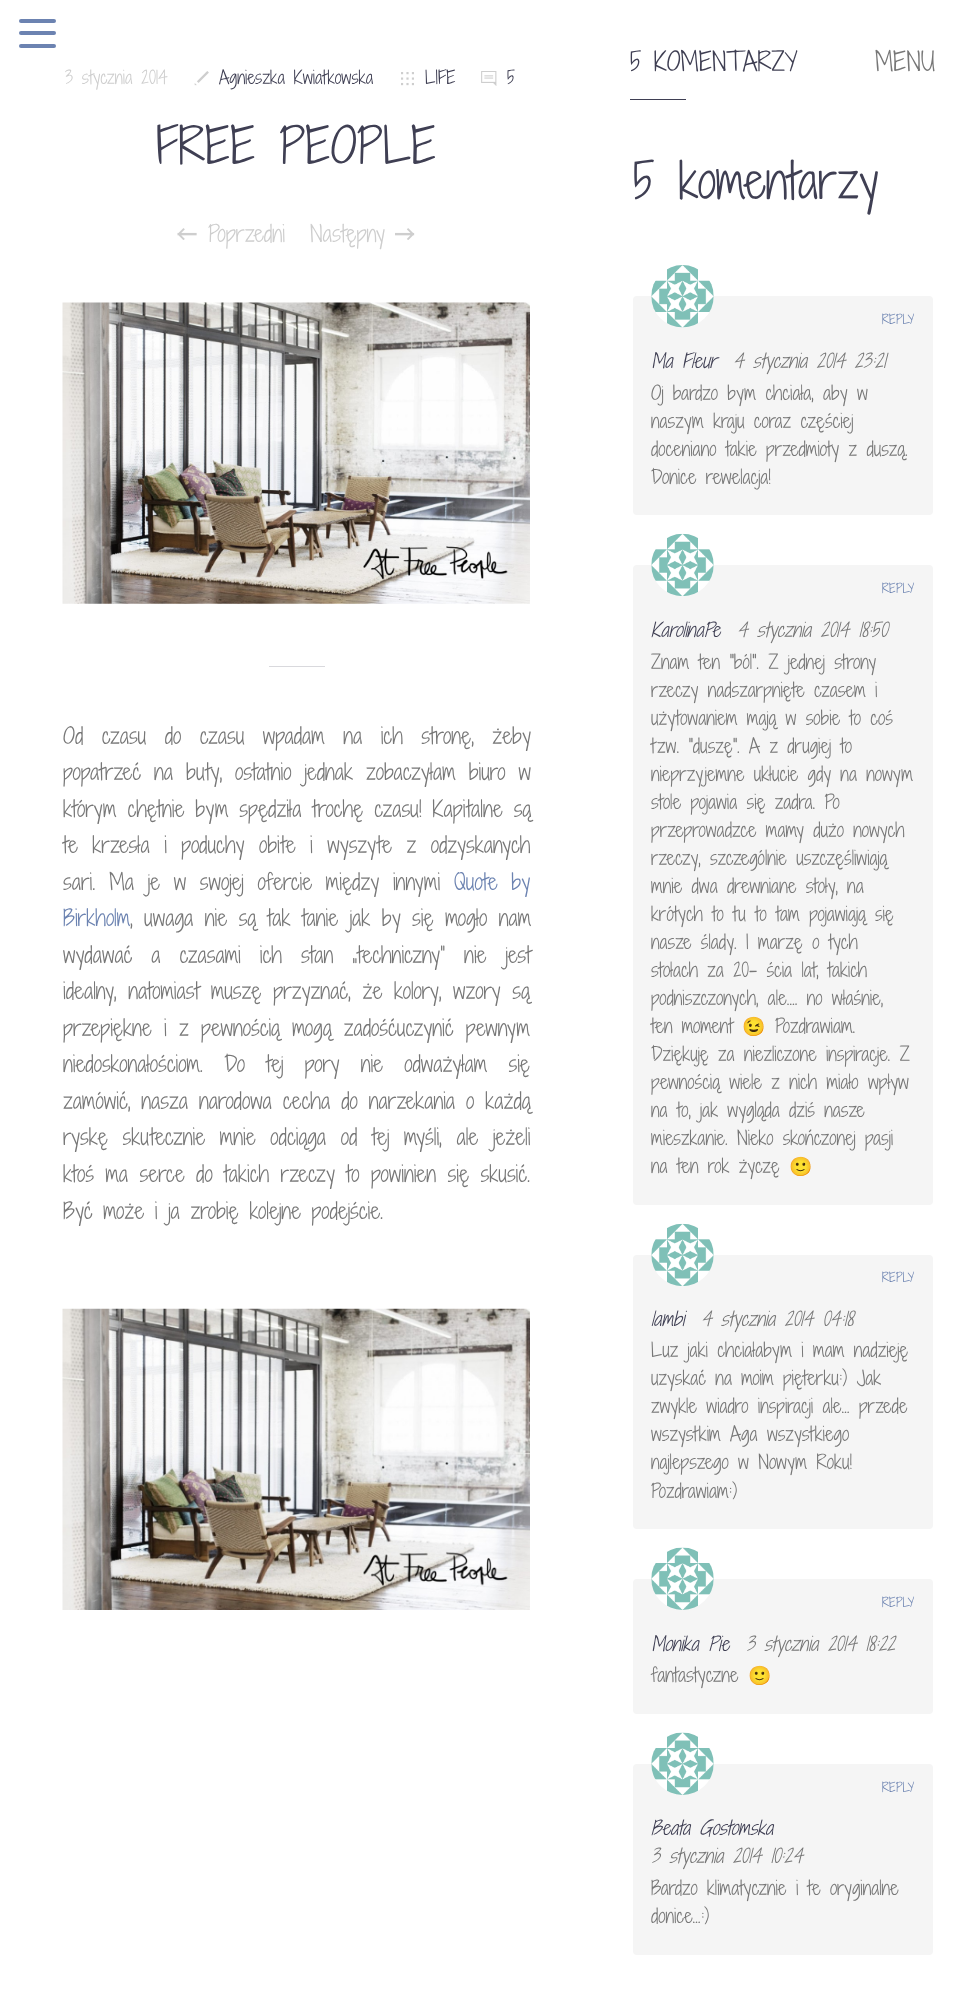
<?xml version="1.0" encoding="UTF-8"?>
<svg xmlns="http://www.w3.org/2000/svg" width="972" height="2000">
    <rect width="100%" height="100%" fill="#FFFFFF"/>
    <rect x="19" y="31" width="37" height="4" rx="2" fill="#6C83B1"/>
    <rect x="19" y="19" width="37" height="4" rx="2" fill="#6C83B1"/>
    <rect x="19" y="44" width="37" height="4" rx="2" fill="#6C83B1"/>
    <text x="65" y="84" font-family="Shadows Into Light Two" font-size="17.5" font-weight="300" fill="#CECECE">3 stycznia 2014</text>
    <image x="194" y="71" width="15" height="15" href="img_01.png"/>
    <text x="219" y="84" font-family="Shadows Into Light Two" font-size="17.5" font-weight="300" fill="#3F3F53">Agnieszka Kwiatkowska</text>
    <image x="401" y="72" width="13" height="14" href="img_02.png"/>
    <text x="425" y="84" font-family="Shadows Into Light Two" font-size="17.5" font-weight="300" fill="#3F3F53">LIFE</text>
    <image x="481" y="71" width="16" height="15" href="img_03.png"/>
    <text x="507" y="84" font-family="Shadows Into Light Two" font-size="17.5" font-weight="300" fill="#3F3F53">5</text>
    <text x="156" y="164" font-family="Shadows Into Light Two" font-size="47.5" font-weight="300" fill="#3F3F53">FREE PEOPLE</text>
    <image x="177" y="228" width="20" height="12" href="img_04.png"/>
    <text x="208" y="242" font-family="Shadows Into Light Two" font-size="22" font-weight="300" fill="#CECECE">Poprzedni</text>
    <text x="310" y="242" font-family="Shadows Into Light Two" font-size="22" font-weight="300" fill="#CECECE">Następny</text>
    <image x="395" y="228" width="20" height="12" href="img_05.png"/>
    <image x="62" y="302" width="468" height="302" href="img_06.png"/>
    <rect x="269" y="666" width="56" height="1" fill="#D9D9DD"/>
    <text font-family="Shadows Into Light Two" font-size="21.5" font-weight="300" fill="#777777">
        <tspan x="63" y="744" word-spacing="7.75">Od czasu do czasu wpadam na ich stronę, żeby</tspan>
        <tspan x="63" y="780" word-spacing="2.25">popatrzeć na buty, ostatnio jednak zobaczyłam biuro w</tspan>
        <tspan x="63" y="817" word-spacing="0.25">którym chętnie bym spędziła trochę czasu! Kapitalne są</tspan>
        <tspan x="63" y="853" word-spacing="3.75">te krzesła i poduchy obite i wyszyte z odzyskanych</tspan>
        <tspan x="63" y="890" word-spacing="3">sari. Ma je w swojej ofercie między innymi</tspan>
    </text>
    <text x="454" y="890" word-spacing="3" font-family="Shadows Into Light Two" font-size="21.5" font-weight="300" fill="#6C83B1">Quote by</text>
    <text x="63" y="926" font-family="Shadows Into Light Two" font-size="21.5" font-weight="300" fill="#6C83B1">Birkholm</text>
    <text x="130" y="926" word-spacing="0.75" font-family="Shadows Into Light Two" font-size="21.5" font-weight="300" fill="#777777">, uwaga nie są tak tanie jak by się mogło nam</text>
    <text font-family="Shadows Into Light Two" font-size="21.5" font-weight="300" fill="#777777">
        <tspan x="63" y="963" word-spacing="8.25">wydawać a czasami ich stan „techniczny” nie jest</tspan>
        <tspan x="63" y="999" word-spacing="1">idealny, natomiast muszę przyznać, że kolory, wzory są</tspan>
        <tspan x="63" y="1036" word-spacing="1.5">przepiękne i z pewnością mogą zadośćuczynić pewnym</tspan>
        <tspan x="63" y="1072" word-spacing="10.5">niedoskonałościom. Do tej pory nie odważyłam się</tspan>
        <tspan x="63" y="1109" word-spacing="0.25">zamówić, nasza narodowa cecha do narzekania o każdą</tspan>
        <tspan x="63" y="1145" word-spacing="4">ryskę skutecznie mnie odciąga od tej myśli, ale jeżeli</tspan>
        <tspan x="63" y="1182" word-spacing="0.75">ktoś ma serce do takich rzeczy to powinien się skusić.</tspan>
        <tspan x="63" y="1219">Być może i ja zrobię kolejne podejście.</tspan>
    </text>
    <image x="62" y="1308" width="468" height="302" href="img_07.png"/>
    <text x="630" y="71" font-family="Shadows Into Light Two" font-size="25" font-weight="300" fill="#3F3F53">5 KOMENTARZY</text>
    <text x="875" y="71" font-family="Shadows Into Light Two" font-size="25" font-weight="300" fill="#777777">MENU</text>
    <rect x="630" y="99" width="56" height="1" fill="#3F3F53"/>
    <text x="633" y="199" font-family="Shadows Into Light Two" font-size="47.5" font-weight="300" fill="#3F3F53">5 komentarzy</text>
    <rect x="633" y="296" width="300" height="219" rx="4" fill="#F5F5F5"/>
    <image x="651" y="265" width="63" height="63" href="img_08.png"/>
    <text x="882" y="324" font-family="Shadows Into Light Two" font-size="12.5" font-weight="300" fill="#6C83B1">REPLY</text>
    <text x="651" y="368" font-family="Shadows Into Light Two" font-size="18.75" font-weight="300" font-style="italic" fill="#3F3F53">Ma Fleur</text>
    <text x="733" y="368" font-family="Shadows Into Light Two" font-size="18.75" font-weight="300" font-style="italic" fill="#777777">4 stycznia 2014 23:21</text>
    <text font-family="Shadows Into Light Two" font-size="18.75" font-weight="300" fill="#777777">
        <tspan x="651" y="400">Oj bardzo bym chciała, aby w</tspan>
        <tspan x="651" y="428">naszym kraju coraz częściej</tspan>
        <tspan x="651" y="456">doceniano takie przedmioty z duszą.</tspan>
        <tspan x="651" y="484">Donice rewelacja!</tspan>
    </text>
    <rect x="633" y="565" width="300" height="640" rx="4" fill="#F5F5F5"/>
    <image x="651" y="533" width="63" height="63" href="img_09.png"/>
    <text x="882" y="593" font-family="Shadows Into Light Two" font-size="12.5" font-weight="300" fill="#6C83B1">REPLY</text>
    <text x="651" y="637" font-family="Shadows Into Light Two" font-size="18.75" font-weight="300" font-style="italic" fill="#3F3F53">KarolinaPe</text>
    <text x="737" y="637" font-family="Shadows Into Light Two" font-size="18.75" font-weight="300" font-style="italic" fill="#777777">4 stycznia 2014 18:50</text>
    <text font-family="Shadows Into Light Two" font-size="18.75" font-weight="300" fill="#777777">
        <tspan x="651" y="669">Znam ten "ból". Z jednej strony</tspan>
        <tspan x="651" y="697">rzeczy nadszarpnięte czasem i</tspan>
        <tspan x="651" y="725">użytowaniem mają w sobie to coś</tspan>
        <tspan x="651" y="753">tzw. "duszę". A z drugiej to</tspan>
        <tspan x="651" y="781">nieprzyjemne ukłucie gdy na nowym</tspan>
        <tspan x="651" y="809">stole pojawia się zadra. Po</tspan>
        <tspan x="651" y="837">przeprowadzce mamy dużo nowych</tspan>
        <tspan x="651" y="865">rzeczy, szczególnie uszczęśliwiają</tspan>
        <tspan x="651" y="893">mnie dwa drewniane stoły, na</tspan>
        <tspan x="651" y="921">krótych to tu to tam pojawiają się</tspan>
        <tspan x="651" y="949">nasze ślady. I marzę o tych</tspan>
        <tspan x="651" y="977">stołach za 20- ścia lat, takich</tspan>
        <tspan x="651" y="1005">podniszczonych, ale…. no właśnie,</tspan>
        <tspan x="651" y="1033">ten moment</tspan>
    </text>
    <text x="742" y="1033" font-family="Noto Color Emoji" font-size="18.75" fill="#777777">😉</text>
    <text x="775" y="1033" font-family="Shadows Into Light Two" font-size="18.75" font-weight="300" fill="#777777">Pozdrawiam.</text>
    <text font-family="Shadows Into Light Two" font-size="18.75" font-weight="300" fill="#777777">
        <tspan x="651" y="1061">Dziękuję za niezliczone inspiracje. Z</tspan>
        <tspan x="651" y="1089">pewnością wiele z nich miało wpływ</tspan>
        <tspan x="651" y="1117">na to, jak wygląda dziś nasze</tspan>
        <tspan x="651" y="1145">mieszkanie. Nieko skończonej pasji</tspan>
        <tspan x="651" y="1173">na ten rok życzę</tspan>
    </text>
    <text x="789" y="1173" font-family="Noto Color Emoji" font-size="18.75" fill="#777777">🙂</text>
    <rect x="633" y="1255" width="300" height="274" rx="4" fill="#F5F5F5"/>
    <image x="651" y="1223" width="63" height="63" href="img_10.png"/>
    <text x="882" y="1282" font-family="Shadows Into Light Two" font-size="12.5" font-weight="300" fill="#6C83B1">REPLY</text>
    <text x="651" y="1326" font-family="Shadows Into Light Two" font-size="18.75" font-weight="300" font-style="italic" fill="#3F3F53">lambi</text>
    <text x="701" y="1326" font-family="Shadows Into Light Two" font-size="18.75" font-weight="300" font-style="italic" fill="#777777">4 stycznia 2014 04:18</text>
    <text font-family="Shadows Into Light Two" font-size="18.75" font-weight="300" fill="#777777">
        <tspan x="651" y="1357">Luz jaki chciałabym i mam nadzieję</tspan>
        <tspan x="651" y="1385">uzyskać na moim pięterku:) Jak</tspan>
        <tspan x="651" y="1413">zwykle wiadro inspiracji ale… przede</tspan>
        <tspan x="651" y="1441">wszystkim Aga wszystkiego</tspan>
        <tspan x="651" y="1469">najlepszego w Nowym Roku!</tspan>
        <tspan x="651" y="1498">Pozdrawiam:)</tspan>
    </text>
    <rect x="633" y="1579" width="300" height="135" rx="4" fill="#F5F5F5"/>
    <image x="651" y="1547" width="63" height="63" href="img_11.png"/>
    <text x="882" y="1607" font-family="Shadows Into Light Two" font-size="12.5" font-weight="300" fill="#6C83B1">REPLY</text>
    <text x="651" y="1651" font-family="Shadows Into Light Two" font-size="18.75" font-weight="300" font-style="italic" fill="#3F3F53">Monika Pie</text>
    <text x="746" y="1651" font-family="Shadows Into Light Two" font-size="18.75" font-weight="300" font-style="italic" fill="#777777">3 stycznia 2014 18:22</text>
    <text x="651" y="1682" font-family="Shadows Into Light Two" font-size="18.75" font-weight="300" fill="#777777">fantastyczne</text>
    <text x="748" y="1682" font-family="Noto Color Emoji" font-size="18.75" fill="#777777">🙂</text>
    <rect x="633" y="1764" width="300" height="191" rx="4" fill="#F5F5F5"/>
    <image x="651" y="1732" width="63" height="63" href="img_12.png"/>
    <text x="882" y="1792" font-family="Shadows Into Light Two" font-size="12.5" font-weight="300" fill="#6C83B1">REPLY</text>
    <text x="651" y="1835" font-family="Shadows Into Light Two" font-size="18.75" font-weight="300" font-style="italic" fill="#3F3F53">Beata Gostomska</text>
    <text x="651" y="1863" font-family="Shadows Into Light Two" font-size="18.75" font-weight="300" font-style="italic" fill="#777777">3 stycznia 2014 10:24</text>
    <text font-family="Shadows Into Light Two" font-size="18.75" font-weight="300" fill="#777777">
        <tspan x="651" y="1895">Bardzo klimatycznie i te oryginalne</tspan>
        <tspan x="651" y="1923">donice…:)</tspan>
    </text>
</svg>
